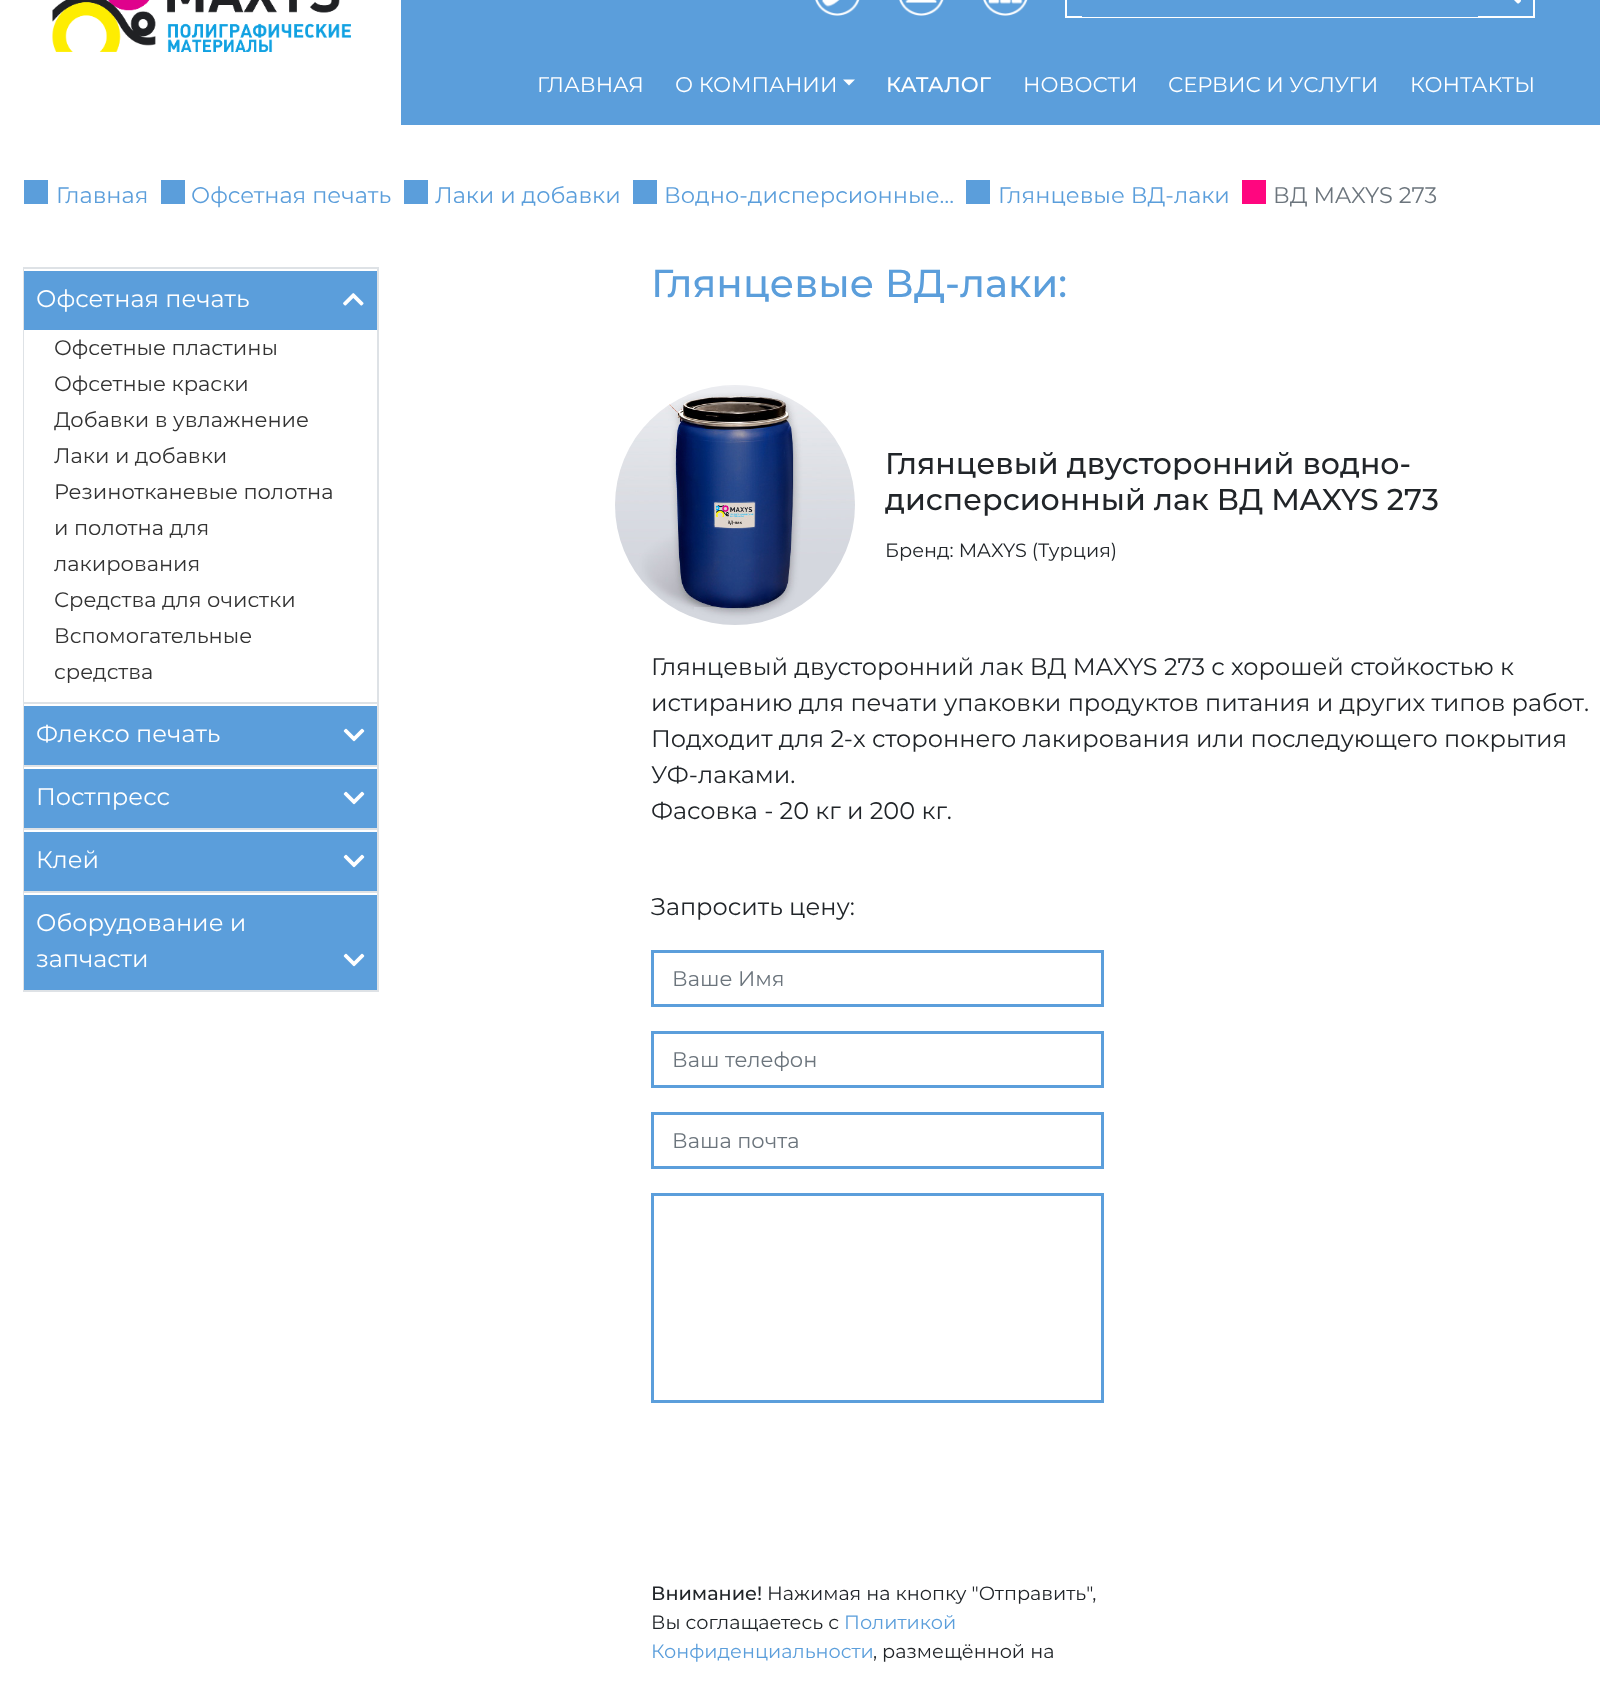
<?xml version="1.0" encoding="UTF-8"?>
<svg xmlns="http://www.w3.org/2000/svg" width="1600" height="1683">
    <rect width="100%" height="100%" fill="#FFFFFF"/>
    <image x="52" y="0" width="299" height="52" href="img_01.png"/>
    <rect x="401" y="0" width="1199" height="125" fill="#5B9EDB"/>
    <image x="815" y="0" width="45" height="16" href="img_02.png"/>
    <image x="899" y="0" width="45" height="16" href="img_03.png"/>
    <image x="983" y="0" width="45" height="16" href="img_04.png"/>
    <rect x="1066" y="-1" width="468" height="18" fill="none" stroke="#FFFFFF" stroke-width="2"/>
    <image x="1514" y="0" width="7" height="4" href="img_05.png"/>
    <rect x="1082" y="16" width="396" height="1" fill="#5B9EDB"/>
    <text x="537" y="92" font-family="Montserrat" font-size="21.25" fill="#FFFFFF">ГЛАВНАЯ</text>
    <text x="675" y="92" font-family="Montserrat" font-size="21.25" fill="#FFFFFF">О КОМПАНИИ</text>
    <path d="M 843 79.5 H 855 L 849 85.5 Z" fill="#FFFFFF"/>
    <text x="886" y="92" font-family="Montserrat" font-size="21.25" font-weight="500" fill="#FFFFFF">КАТАЛОГ</text>
    <text x="1023" y="92" font-family="Montserrat" font-size="21.25" fill="#FFFFFF">НОВОСТИ</text>
    <text x="1168" y="92" font-family="Montserrat" font-size="21.25" fill="#FFFFFF">СЕРВИС И УСЛУГИ</text>
    <text x="1410" y="92" font-family="Montserrat" font-size="21.25" fill="#FFFFFF">КОНТАКТЫ</text>
    <rect x="24" y="180" width="24" height="24" fill="#5B9EDB"/>
    <text x="56" y="203" font-family="Montserrat" font-size="22.5" fill="#5B9EDB">Главная</text>
    <rect x="161" y="180" width="24" height="24" fill="#5B9EDB"/>
    <text x="191" y="203" font-family="Montserrat" font-size="22.5" fill="#5B9EDB">Офсетная печать</text>
    <rect x="404" y="180" width="24" height="24" fill="#5B9EDB"/>
    <text x="435" y="203" font-family="Montserrat" font-size="22.5" fill="#5B9EDB">Лаки и добавки</text>
    <rect x="633" y="180" width="24" height="24" fill="#5B9EDB"/>
    <text x="664" y="203" font-family="Montserrat" font-size="22.5" fill="#5B9EDB">Водно-дисперсионные…</text>
    <rect x="966" y="180" width="24" height="24" fill="#5B9EDB"/>
    <text x="998" y="203" font-family="Montserrat" font-size="22.5" fill="#5B9EDB">Глянцевые ВД-лаки</text>
    <rect x="1242" y="180" width="24" height="24" fill="#FF067F"/>
    <text x="1273" y="203" font-family="Montserrat" font-size="22.5" fill="#6C757D">ВД MAXYS 273</text>
    <rect x="23" y="267" width="355" height="2" fill="#DEE2E6"/>
    <rect x="377" y="267" width="2" height="725" fill="#DEE2E6"/>
    <rect x="23" y="267" width="2" height="725" fill="#DEE2E6"/>
    <rect x="24" y="271" width="353" height="59" fill="#5B9EDB"/>
    <rect x="24" y="269" width="1" height="2" fill="#FFFFFF"/>
    <rect x="24" y="702" width="353" height="2" fill="#DEE2E6"/>
    <text x="36" y="307" font-family="Montserrat" font-size="24" fill="#FFFFFF">Офсетная печать</text>
    <image x="343" y="293" width="21" height="13" href="img_06.png"/>
    <rect x="24" y="330" width="1" height="372" fill="#FFFFFF"/>
    <text font-family="Montserrat" font-size="21" fill="#333333">
        <tspan x="54" y="355">Офсетные пластины</tspan>
        <tspan x="54" y="391">Офсетные краски</tspan>
        <tspan x="54" y="427">Добавки в увлажнение</tspan>
        <tspan x="54" y="463">Лаки и добавки</tspan>
        <tspan x="54" y="499">Резинотканевые полотна</tspan>
        <tspan x="54" y="535">и полотна для</tspan>
        <tspan x="54" y="571">лакирования</tspan>
        <tspan x="54" y="607">Средства для очистки</tspan>
        <tspan x="54" y="643">Вспомогательные</tspan>
        <tspan x="54" y="679">средства</tspan>
    </text>
    <rect x="24" y="706" width="353" height="59" fill="#5B9EDB"/>
    <rect x="24" y="704" width="1" height="2" fill="#FFFFFF"/>
    <rect x="24" y="765" width="353" height="2" fill="#DEE2E6"/>
    <text x="36" y="742" font-family="Montserrat" font-size="24" fill="#FFFFFF">Флексо печать</text>
    <image x="343" y="728" width="22" height="14" href="img_07.png"/>
    <rect x="24" y="769" width="353" height="59" fill="#5B9EDB"/>
    <rect x="24" y="767" width="1" height="2" fill="#FFFFFF"/>
    <rect x="24" y="828" width="353" height="2" fill="#DEE2E6"/>
    <text x="36" y="805" font-family="Montserrat" font-size="24" fill="#FFFFFF">Постпресс</text>
    <image x="343" y="791" width="22" height="14" href="img_07.png"/>
    <rect x="24" y="832" width="353" height="59" fill="#5B9EDB"/>
    <rect x="24" y="830" width="1" height="2" fill="#FFFFFF"/>
    <rect x="24" y="891" width="353" height="2" fill="#DEE2E6"/>
    <text x="36" y="868" font-family="Montserrat" font-size="24" fill="#FFFFFF">Клей</text>
    <image x="343" y="854" width="22" height="14" href="img_07.png"/>
    <rect x="24" y="895" width="353" height="95" fill="#5B9EDB"/>
    <rect x="24" y="893" width="1" height="2" fill="#FFFFFF"/>
    <rect x="24" y="990" width="353" height="2" fill="#DEE2E6"/>
    <text font-family="Montserrat" font-size="24" fill="#FFFFFF">
        <tspan x="36" y="931">Оборудование и</tspan>
        <tspan x="36" y="967">запчасти</tspan>
    </text>
    <image x="343" y="953" width="22" height="14" href="img_07.png"/>
    <text x="651" y="297" font-family="Montserrat" font-size="39" font-weight="500" fill="#5B9EDB">Глянцевые ВД-лаки:</text>
    <image x="615" y="385" width="240" height="240" href="img_08.png"/>
    <text font-family="Montserrat" font-size="30" font-weight="500" fill="#212529">
        <tspan x="885" y="474">Глянцевый двусторонний водно-</tspan>
        <tspan x="885" y="510">дисперсионный лак ВД MAXYS 273</tspan>
    </text>
    <text x="885" y="557" font-family="Montserrat" font-size="19.25" fill="#212529">Бренд: MAXYS (Турция)</text>
    <text font-family="Montserrat" font-size="24" fill="#212529">
        <tspan x="651" y="675">Глянцевый двусторонний лак ВД MAXYS 273 с хорошей стойкостью к</tspan>
        <tspan x="651" y="711">истиранию для печати упаковки продуктов питания и других типов работ.</tspan>
        <tspan x="651" y="747">Подходит для 2-х стороннего лакирования или последующего покрытия</tspan>
        <tspan x="651" y="783">УФ-лаками.</tspan>
        <tspan x="651" y="819">Фасовка - 20 кг и 200 кг.</tspan>
    </text>
    <text x="651" y="915" font-family="Montserrat" font-size="24" fill="#212529">Запросить цену:</text>
    <rect x="652.5" y="951.5" width="450" height="54" fill="none" stroke="#5B9EDB" stroke-width="3"/>
    <text x="672" y="986" font-family="Montserrat" font-size="21" fill="#6C757D">Ваше Имя</text>
    <rect x="652.5" y="1032.5" width="450" height="54" fill="none" stroke="#5B9EDB" stroke-width="3"/>
    <text x="672" y="1067" font-family="Montserrat" font-size="21" fill="#6C757D">Ваш телефон</text>
    <rect x="652.5" y="1113.5" width="450" height="54" fill="none" stroke="#5B9EDB" stroke-width="3"/>
    <text x="672" y="1148" font-family="Montserrat" font-size="21" fill="#6C757D">Ваша почта</text>
    <rect x="652.5" y="1194.5" width="450" height="207" fill="none" stroke="#5B9EDB" stroke-width="3"/>
    <text x="651" y="1600" font-family="Montserrat" font-size="19.25" font-weight="500" fill="#212529">Внимание!</text>
    <text x="767" y="1600" font-family="Montserrat" font-size="19.25" fill="#212529">Нажимая на кнопку "Отправить",</text>
    <text x="651" y="1629" font-family="Montserrat" font-size="19.25" fill="#212529">Вы соглащаетесь с</text>
    <text x="844" y="1629" font-family="Montserrat" font-size="19.25" fill="#5B9EDB">Политикой</text>
    <text x="651" y="1658" font-family="Montserrat" font-size="19.25" fill="#5B9EDB">Конфиденциальности</text>
    <text x="873" y="1658" font-family="Montserrat" font-size="19.25" fill="#212529">, размещённой на</text>
</svg>
